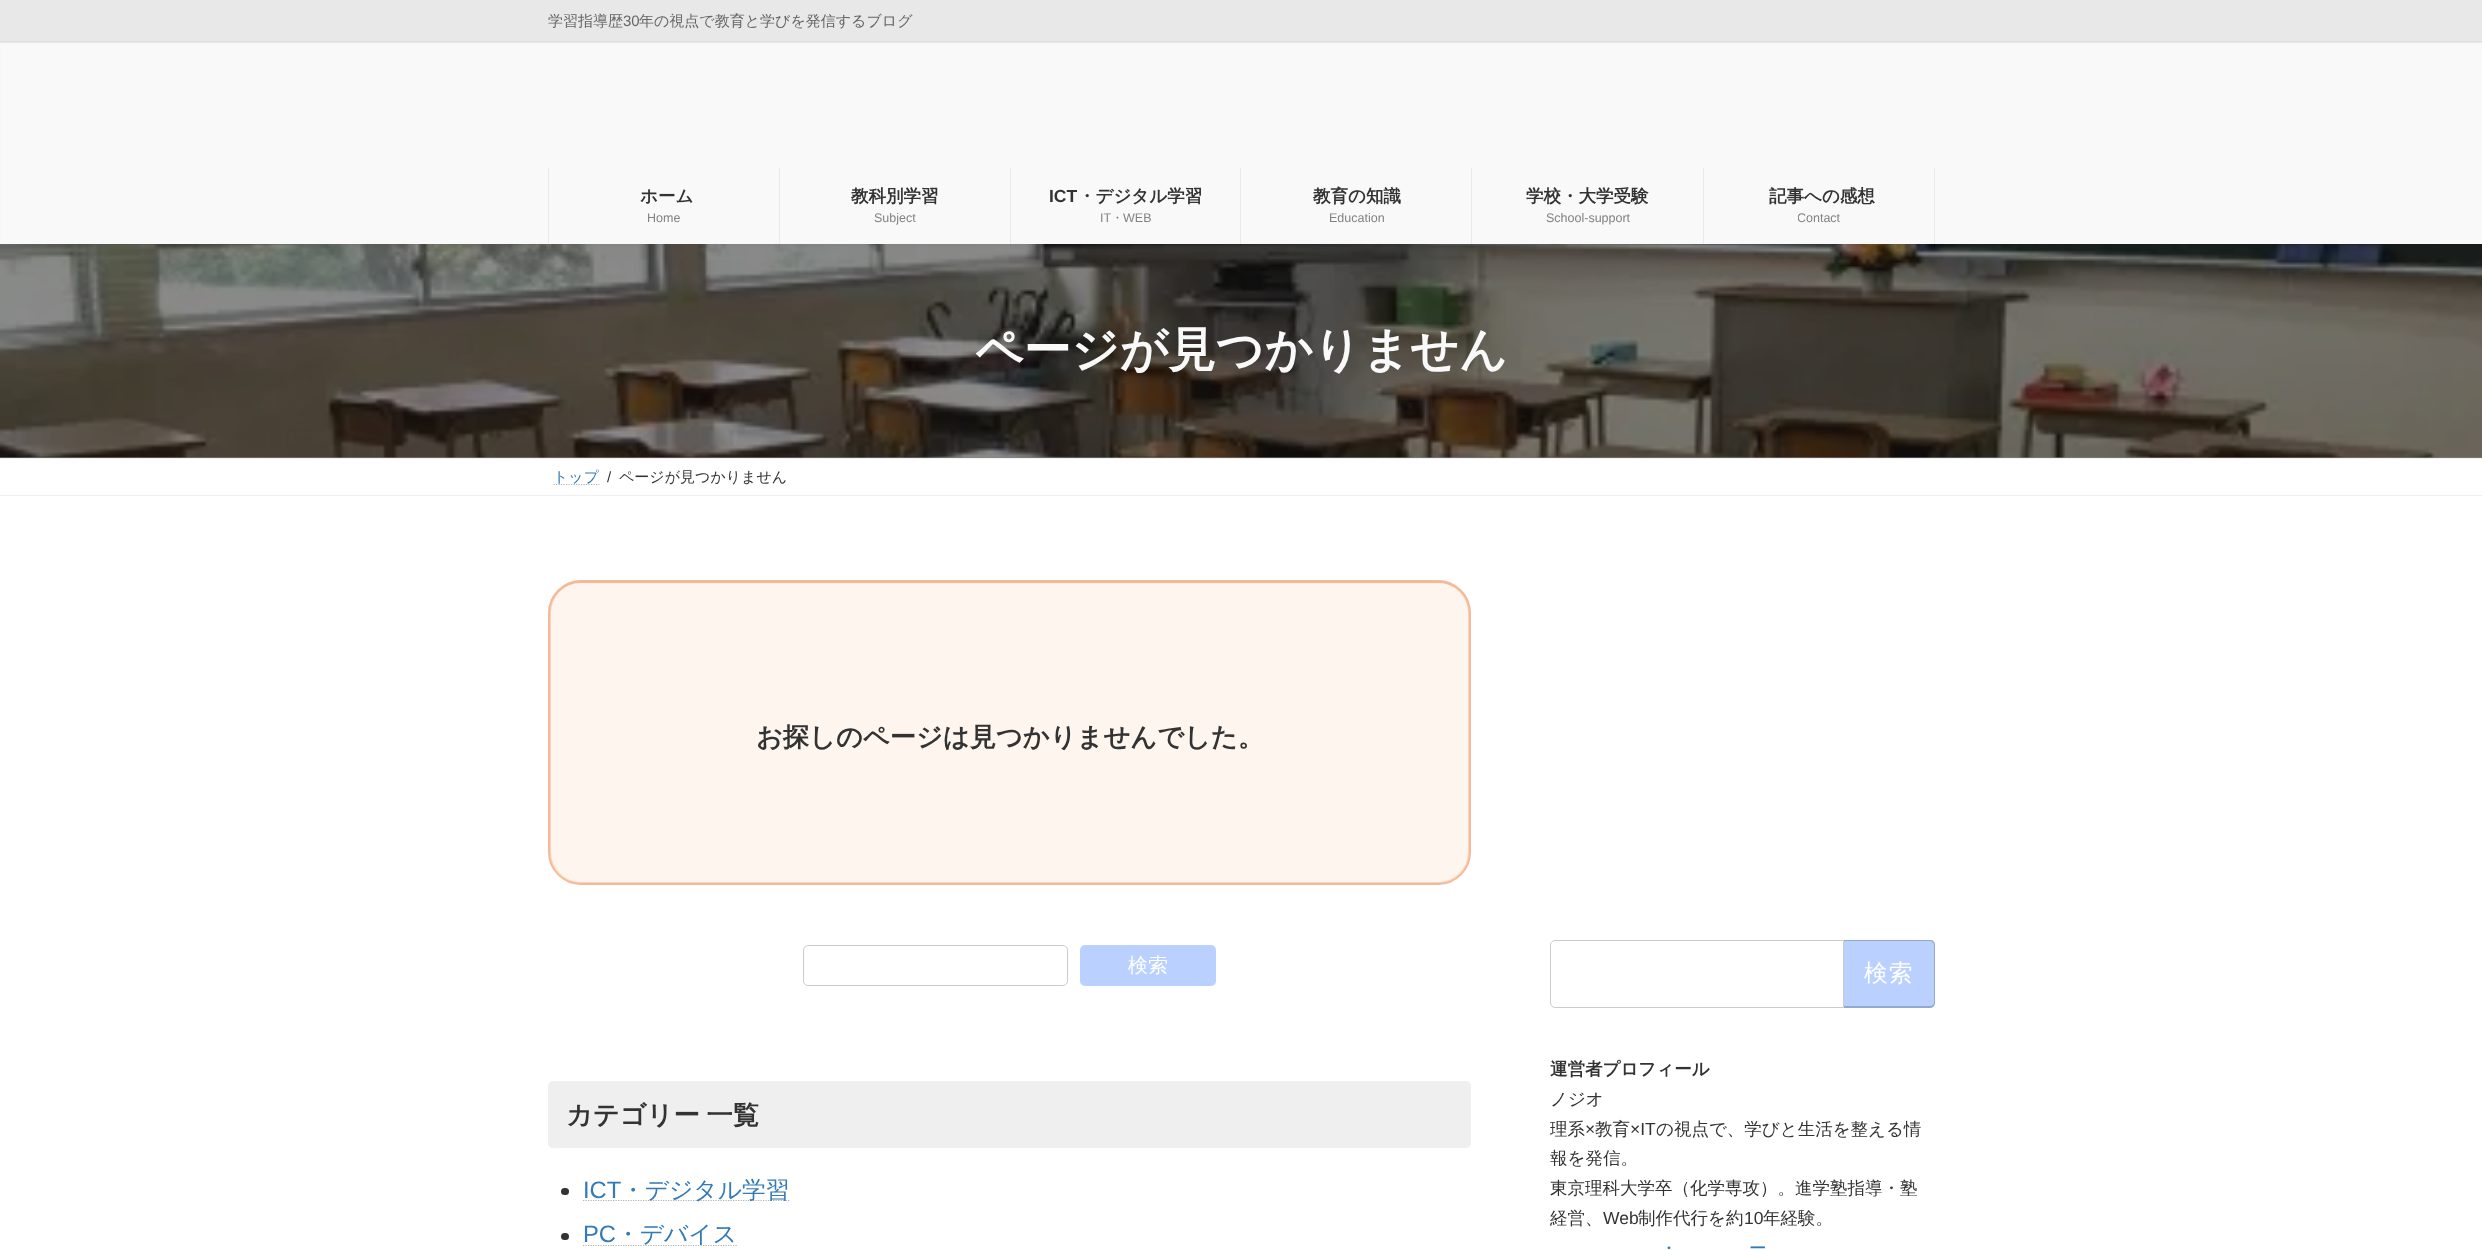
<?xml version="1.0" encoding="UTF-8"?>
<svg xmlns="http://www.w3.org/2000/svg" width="2482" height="1250">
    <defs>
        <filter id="blur1" x="-50%" y="-200%" width="200%" height="500%"><feGaussianBlur stdDeviation="2"/></filter>
        <clipPath id="clip1"><rect x="648" y="209" width="32" height="17"/></clipPath>
        <clipPath id="clip2"><rect x="1798" y="209" width="42" height="17"/></clipPath>
    </defs>
    <rect width="100%" height="100%" fill="#FFFFFF"/>
    <rect x="0" y="457" width="2482" height="1" fill="#8A8A8A"/>
    <image x="0" y="244" width="2482" height="214" href="img_01.png"/>
    <rect x="0" y="-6" width="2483" height="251" fill="#000000" fill-opacity="0.05" filter="url(#blur1)"/>
    <rect x="1" y="43" width="2481" height="201" fill="#F9F9F9"/>
    <rect x="0" y="0" width="2482" height="43" fill="#E8E8E8"/>
    <rect x="0" y="41" width="2482" height="1" fill="#DFDFDF"/>
    <text x="548" y="26" font-family="WenQuanYi Zen Hei" font-size="15" font-weight="500" fill="#666666">学習指導歴</text>
    <text x="623" y="26" font-family="Liberation Sans" font-size="15" fill="#666666">30</text>
    <text x="639" y="26" font-family="WenQuanYi Zen Hei" font-size="15" font-weight="500" fill="#666666">年の視点で教育と学びを発信するブログ</text>
    <rect x="779" y="168" width="1" height="76" fill="#EAEAEA"/>
    <rect x="548" y="168" width="1" height="76" fill="#EAEAEA"/>
    <text x="640" y="202" font-family="WenQuanYi Zen Hei" font-size="17.5" font-weight="700" fill="#333333">ホーム</text>
    <g clip-path="url(#clip1)">
        <text x="647" y="222" font-family="Liberation Sans" font-size="12.5" fill="#828282">Home</text>
    </g>
    <rect x="1010" y="168" width="1" height="76" fill="#EAEAEA"/>
    <text x="851" y="202" font-family="WenQuanYi Zen Hei" font-size="17.5" font-weight="700" fill="#333333">教科別学習</text>
    <text x="874" y="222" font-family="Liberation Sans" font-size="12.5" fill="#828282">Subject</text>
    <rect x="1240" y="168" width="1" height="76" fill="#EAEAEA"/>
    <text x="1049" y="202" font-family="Liberation Sans" font-size="17.5" font-weight="700" fill="#333333">ICT</text>
    <text x="1078" y="202" font-family="WenQuanYi Zen Hei" font-size="17.5" font-weight="700" fill="#333333">・デジタル学習</text>
    <text x="1100" y="222" font-family="Liberation Sans" font-size="12.5" fill="#828282">IT</text>
    <text x="1111" y="222" font-family="WenQuanYi Zen Hei" font-size="12.5" font-weight="500" fill="#828282">・</text>
    <text x="1123" y="222" font-family="Liberation Sans" font-size="12.5" fill="#828282">WEB</text>
    <rect x="1471" y="168" width="1" height="76" fill="#EAEAEA"/>
    <text x="1313" y="202" font-family="WenQuanYi Zen Hei" font-size="17.5" font-weight="700" fill="#333333">教育の知識</text>
    <text x="1329" y="222" font-family="Liberation Sans" font-size="12.5" fill="#828282">Education</text>
    <rect x="1703" y="168" width="1" height="76" fill="#EAEAEA"/>
    <text x="1526" y="202" font-family="WenQuanYi Zen Hei" font-size="17.5" font-weight="700" fill="#333333">学校・大学受験</text>
    <text x="1546" y="222" font-family="Liberation Sans" font-size="12.5" fill="#828282">School-support</text>
    <rect x="1934" y="168" width="1" height="76" fill="#EAEAEA"/>
    <text x="1769" y="202" font-family="WenQuanYi Zen Hei" font-size="17.5" font-weight="700" fill="#333333">記事への感想</text>
    <g clip-path="url(#clip2)">
        <text x="1797" y="222" font-family="Liberation Sans" font-size="12.5" fill="#828282">Contact</text>
    </g>
    <text x="975" y="366" font-family="WenQuanYi Zen Hei" font-size="47.5" font-weight="700" fill="#F9F9F9">ページが見つかりません</text>
    <rect x="0" y="458" width="2482" height="1" fill="#F0F0F0"/>
    <rect x="0" y="495" width="2482" height="1" fill="#F0F0F0"/>
    <path d="M 553.5 484.5 H 599.5" fill="none" stroke="#B3B3B3" stroke-width="1.2" stroke-dasharray="1.25 1.25"/>
    <text x="553" y="482" font-family="WenQuanYi Zen Hei" font-size="15" font-weight="500" fill="#337AB7">トップ</text>
    <text x="607" y="482" font-family="Liberation Sans" font-size="15" fill="#333333">/</text>
    <text x="619" y="482" font-family="WenQuanYi Zen Hei" font-size="15" font-weight="500" fill="#333333">ページが見つかりません</text>
    <rect x="549.5" y="581.5" width="920" height="302" rx="31.5" fill="none" stroke="#F4B996" stroke-width="3"/>
    <rect x="550" y="583" width="919" height="300" rx="30" fill="#FEEDDE" fill-opacity="0.5"/>
    <text x="756" y="746" font-family="WenQuanYi Zen Hei" font-size="26.25" font-weight="700" fill="#333333">お探しのページは見つかりませんでした。</text>
    <rect x="803.5" y="945.5" width="264" height="40" rx="4.5" fill="none" stroke="#CCCCCC"/>
    <rect x="1080" y="945" width="136" height="41" rx="5" fill="#BAD1FF"/>
    <text x="1128" y="972" font-family="WenQuanYi Zen Hei" font-size="20" font-weight="500" fill="#FFFFFF">検索</text>
    <rect x="548" y="1081" width="923" height="67" rx="5" fill="#EFEFEF"/>
    <text x="566" y="1124" word-spacing="-1" font-family="WenQuanYi Zen Hei" font-size="26.25" font-weight="700" fill="#333333">カテゴリー 一覧</text>
    <rect x="561" y="1188" width="8" height="7" rx="3.5" fill="#333333"/>
    <text x="583" y="1198" font-family="Liberation Sans" font-size="23.75" fill="#337AB7">ICT</text>
    <path d="M 583 1200.5 H 790" fill="none" stroke="#B3B3B3" stroke-width="1.2" stroke-dasharray="1.25 1.25"/>
    <text x="621" y="1198" font-family="WenQuanYi Zen Hei" font-size="23.75" font-weight="500" fill="#337AB7">・デジタル学習</text>
    <rect x="561" y="1233" width="8" height="7" rx="3.5" fill="#333333"/>
    <text x="583" y="1242" font-family="Liberation Sans" font-size="23.75" fill="#337AB7">PC</text>
    <path d="M 583 1245.5 H 737" fill="none" stroke="#B3B3B3" stroke-width="1.2" stroke-dasharray="1.25 1.25"/>
    <text x="616" y="1242" font-family="WenQuanYi Zen Hei" font-size="23.75" font-weight="500" fill="#337AB7">・デバイス</text>
    <path d="M 1555 940.5 H 1843.5 V 1007.5 H 1555 C 1552.5 1007.5 1550.5 1005.5 1550.5 1003 V 945 C 1550.5 942.5 1552.5 940.5 1555 940.5 Z" fill="none" stroke="#CCCCCC"/>
    <path d="M 1844 940 H 1930 C 1933 940 1935 942 1935 945 V 1003 C 1935 1006 1933 1008 1930 1008 H 1844 Z" fill="#BAD1FF"/>
    <path d="M 1844 940 H 1930 C 1933 940 1935 942 1935 945 V 1002 C 1935 1005 1933 1008 1930 1008 H 1844 Z M 1844 941 H 1930 C 1932 941 1934 943 1934 945 V 1002 C 1934 1005 1932 1006 1930 1006 H 1844 Z" fill="#000000" fill-opacity="0.2" fill-rule="evenodd"/>
    <text x="1864" y="981" font-family="WenQuanYi Zen Hei" font-size="23.75" font-weight="500" letter-spacing="1" fill="#FFFFFF">検索</text>
    <text x="1550" y="1075" font-family="WenQuanYi Zen Hei" font-size="17.5" font-weight="700" fill="#333333">運営者プロフィール</text>
    <text font-family="WenQuanYi Zen Hei" font-size="17.5" font-weight="500" fill="#333333">
        <tspan x="1550" y="1105">ノジオ</tspan>
        <tspan x="1550" y="1135">理系</tspan>
    </text>
    <text x="1585" y="1135" font-family="Liberation Sans" font-size="17.5" fill="#333333">×</text>
    <text x="1595" y="1135" font-family="WenQuanYi Zen Hei" font-size="17.5" font-weight="500" fill="#333333">教育</text>
    <text x="1630" y="1135" font-family="Liberation Sans" font-size="17.5" fill="#333333">×IT</text>
    <text x="1656" y="1135" font-family="WenQuanYi Zen Hei" font-size="17.5" font-weight="500" fill="#333333">の視点で、学びと生活を整える情</text>
    <text font-family="WenQuanYi Zen Hei" font-size="17.5" font-weight="500" fill="#333333">
        <tspan x="1550" y="1164">報を発信。</tspan>
        <tspan x="1550" y="1194">東京理科大学卒（化学専攻）。進学塾指導・塾</tspan>
        <tspan x="1550" y="1224">経営、</tspan>
    </text>
    <text x="1603" y="1224" font-family="Liberation Sans" font-size="17.5" fill="#333333">Web</text>
    <text x="1638" y="1224" font-family="WenQuanYi Zen Hei" font-size="17.5" font-weight="500" fill="#333333">制作代行を約</text>
    <text x="1744" y="1224" font-family="Liberation Sans" font-size="17.5" fill="#333333">10</text>
    <text x="1763" y="1224" font-family="WenQuanYi Zen Hei" font-size="17.5" font-weight="500" fill="#333333">年経験。</text>
    <text x="1660" y="1254" font-family="WenQuanYi Zen Hei" font-size="17.5" font-weight="500" fill="#337AB7">・</text>
    <text x="1749" y="1254" font-family="WenQuanYi Zen Hei" font-size="17.5" font-weight="500" fill="#337AB7">ー</text>
</svg>
